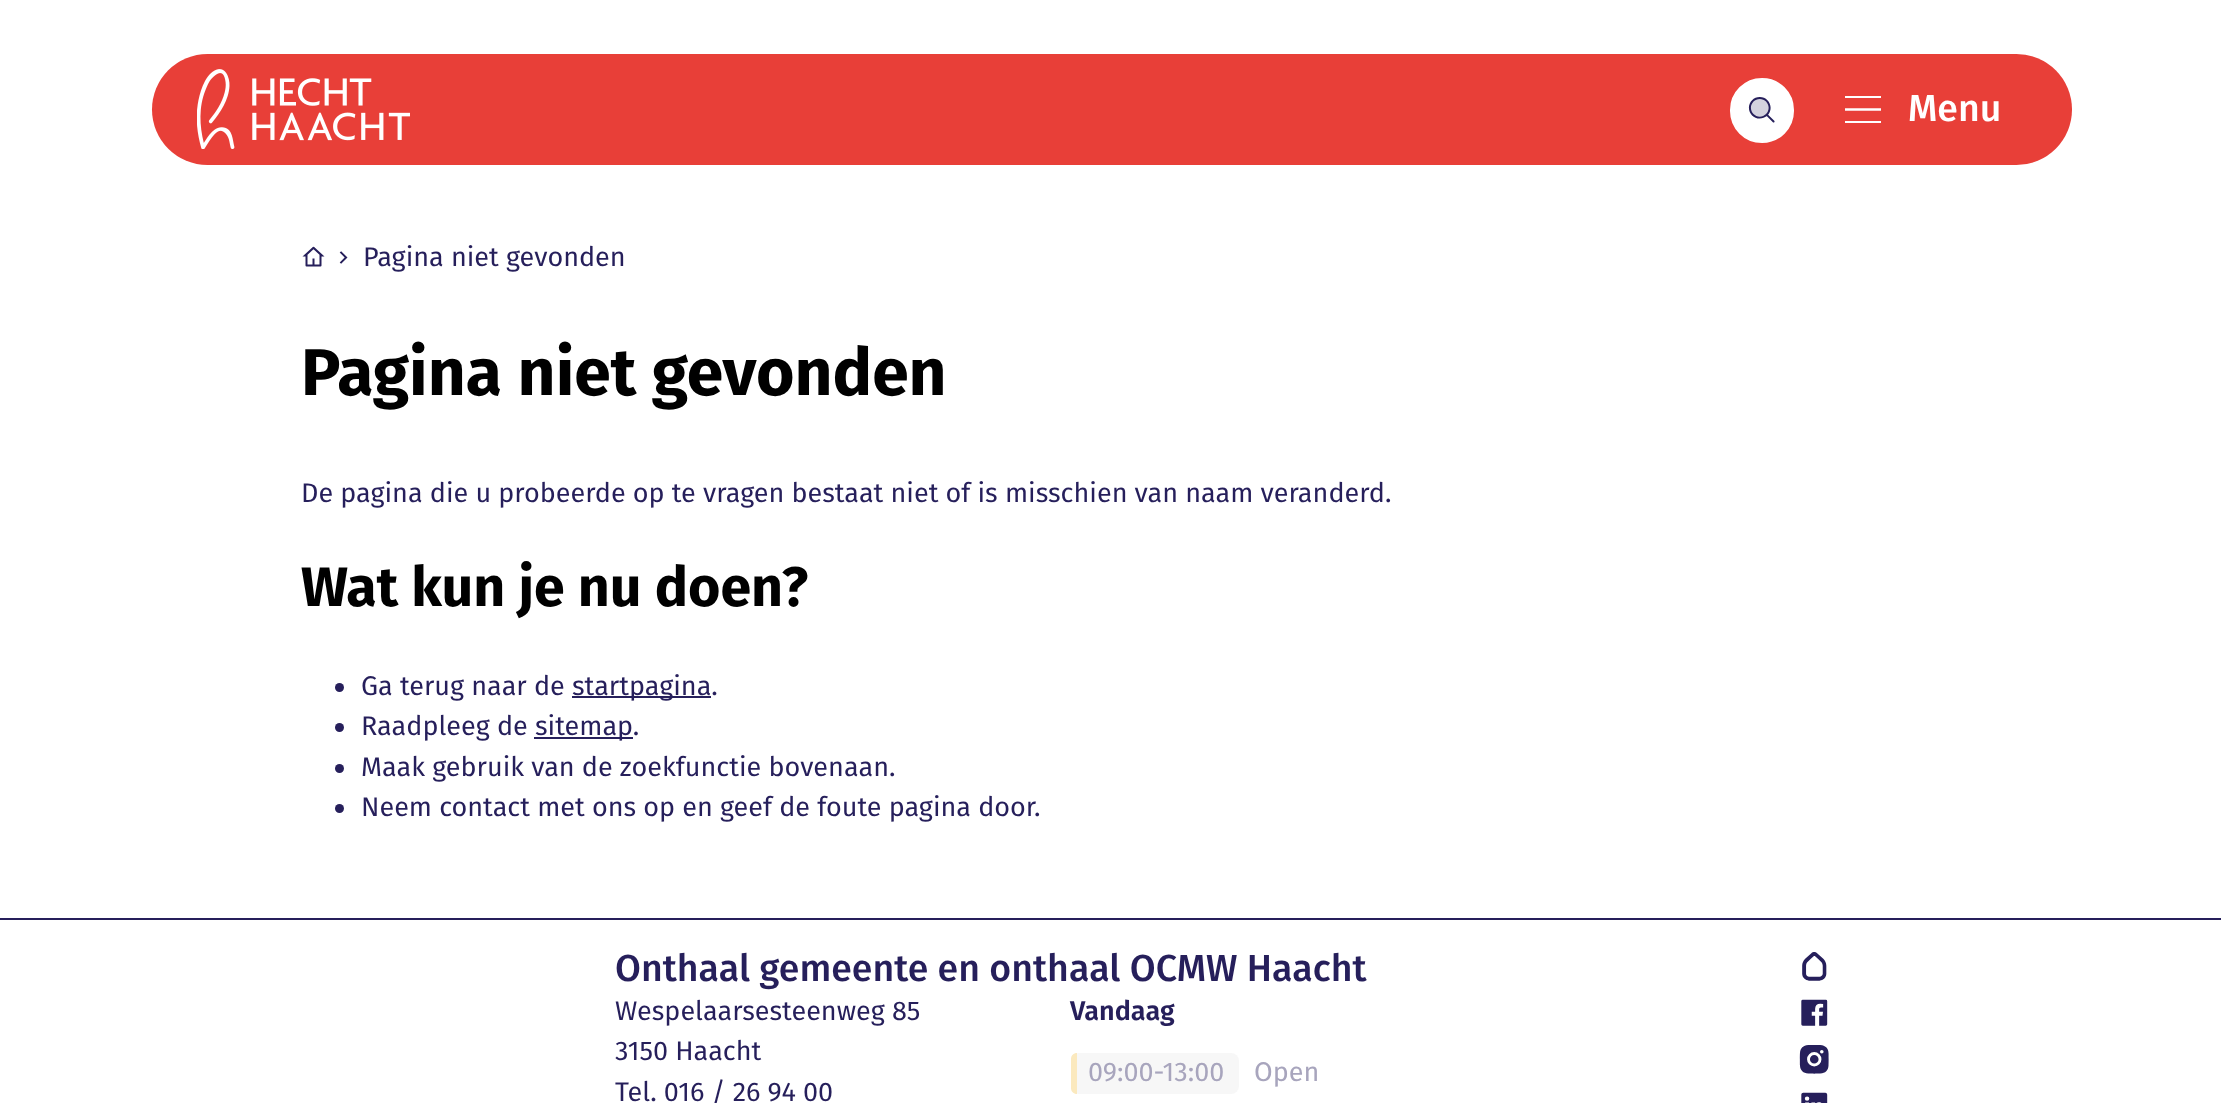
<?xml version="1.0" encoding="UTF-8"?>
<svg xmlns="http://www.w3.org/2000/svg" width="2221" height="1103">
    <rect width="100%" height="100%" fill="#FFFFFF"/>
    <rect x="152" y="54" width="1920" height="111" rx="55.5" fill="#E83F38"/>
    <image x="197" y="69" width="213" height="80" href="img_01.png"/>
    <rect x="1731" y="79" width="62" height="63" rx="31" fill="#FFFFFF" stroke="#FFFFFF" stroke-width="2"/>
    <image x="1748" y="97" width="27" height="26" href="img_02.png"/>
    <rect x="1845" y="96" width="36" height="2" fill="#FFFFFF"/>
    <path d="M 1845 109.5 H 1881" fill="none" stroke="#FFFFFF" stroke-width="2.4"/>
    <rect x="1845" y="121" width="36" height="2" fill="#FFFFFF"/>
    <text x="1908" y="121" font-family="Fira Sans" font-size="37.5" font-weight="500" fill="#FFFFFF">Menu</text>
    <image x="302" y="246" width="23" height="21" href="img_03.png"/>
    <image x="339" y="251" width="9" height="13" href="img_04.png"/>
    <text x="363" y="266" font-family="Fira Sans" font-size="27" fill="#261F5B">Pagina niet gevonden</text>
    <text x="301" y="395" font-family="Fira Sans" font-size="66" font-weight="700" fill="#000000">Pagina niet gevonden</text>
    <text x="301" y="502" font-family="Fira Sans" font-size="27" fill="#261F5B">De pagina die u probeerde op te vragen bestaat niet of is misschien van naam veranderd.</text>
    <text x="301" y="606" font-family="Fira Sans" font-size="55.5" font-weight="700" fill="#000000">Wat kun je nu doen?</text>
    <circle cx="339.5" cy="687.5" r="4.5" fill="#261F5B"/>
    <text x="361" y="695" font-family="Fira Sans" font-size="27" fill="#261F5B">Ga terug naar de</text>
    <rect x="572" y="696" width="139" height="2" fill="#261F5B"/>
    <text x="572" y="695" font-family="Fira Sans" font-size="27" fill="#261F5B">startpagina.</text>
    <circle cx="339.5" cy="727.5" r="4.5" fill="#261F5B"/>
    <text x="361" y="735" font-family="Fira Sans" font-size="27" fill="#261F5B">Raadpleeg de</text>
    <rect x="534" y="737" width="99" height="2" fill="#261F5B"/>
    <text x="535" y="735" font-family="Fira Sans" font-size="27" fill="#261F5B">sitemap.</text>
    <circle cx="339.5" cy="768.5" r="4.5" fill="#261F5B"/>
    <text x="361" y="776" font-family="Fira Sans" font-size="27" fill="#261F5B">Maak gebruik van de zoekfunctie bovenaan.</text>
    <circle cx="339.5" cy="808.5" r="4.5" fill="#261F5B"/>
    <text x="361" y="816" font-family="Fira Sans" font-size="27" fill="#261F5B">Neem contact met ons op en geef de foute pagina door.</text>
    <rect x="0" y="918" width="2221" height="2" fill="#261F5B"/>
    <text x="615" y="981" font-family="Fira Sans" font-size="37.5" font-weight="500" fill="#261F5B">Onthaal gemeente en onthaal OCMW Haacht</text>
    <text font-family="Fira Sans" font-size="27" fill="#261F5B">
        <tspan x="615" y="1020">Wespelaarsesteenweg 85</tspan>
        <tspan x="615" y="1060">3150 Haacht</tspan>
        <tspan x="615" y="1101">Tel. 016 / 26 94 00</tspan>
    </text>
    <text x="1070" y="1020" font-family="Fira Sans" font-size="27" font-weight="600" fill="#261F5B">Vandaag</text>
    <rect x="1071" y="1053" width="168" height="41" rx="8" fill="#F7F7F7"/>
    <path d="M 1077 1053 V 1094 C 1073.5 1094 1071 1091.5 1071 1088 V 1059 C 1071 1055.5 1073.5 1053 1077 1053 Z" fill="#FBE9BE"/>
    <text x="1088" y="1081" font-family="Fira Sans" font-size="27" fill="#A8A5BD">09:00-13:00</text>
    <text x="1254" y="1081" font-family="Fira Sans" font-size="27" fill="#A8A5BD">Open</text>
    <image x="1802" y="952" width="25" height="29" href="img_05.png"/>
    <image x="1801" y="999" width="27" height="27" href="img_06.png"/>
    <image x="1799" y="1045" width="30" height="29" href="img_07.png"/>
    <image x="1801" y="1092" width="27" height="11" href="img_08.png"/>
</svg>
